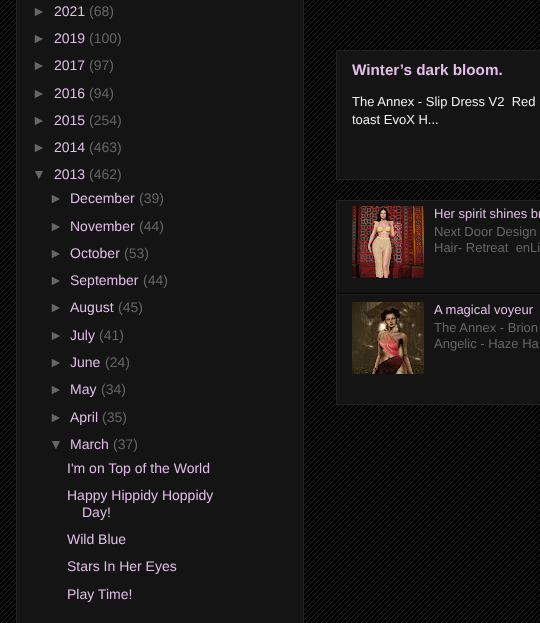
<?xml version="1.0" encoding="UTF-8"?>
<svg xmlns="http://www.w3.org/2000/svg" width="540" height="623">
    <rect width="100%" height="100%" fill="#000000"/>
    <image x="0" y="0" width="540" height="623" href="img_01.png"/>
    <rect x="16.5" y="-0.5" width="287" height="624" fill="#141414" stroke="#222222"/>
    <text x="32" y="16" font-family="Liberation Sans" font-size="14" fill="#666666">►</text>
    <text x="54" y="16" font-family="Liberation Sans" font-size="14" fill="#E1BEE7">2021</text>
    <text x="89" y="16" font-family="Liberation Sans" font-size="14" fill="#666666">(68)</text>
    <text x="32" y="43" font-family="Liberation Sans" font-size="14" fill="#666666">►</text>
    <text x="54" y="43" font-family="Liberation Sans" font-size="14" fill="#E1BEE7">2019</text>
    <text x="89" y="43" font-family="Liberation Sans" font-size="14" fill="#666666">(100)</text>
    <text x="32" y="70" font-family="Liberation Sans" font-size="14" fill="#666666">►</text>
    <text x="54" y="70" font-family="Liberation Sans" font-size="14" fill="#E1BEE7">2017</text>
    <text x="89" y="70" font-family="Liberation Sans" font-size="14" fill="#666666">(97)</text>
    <text x="32" y="98" font-family="Liberation Sans" font-size="14" fill="#666666">►</text>
    <text x="54" y="98" font-family="Liberation Sans" font-size="14" fill="#E1BEE7">2016</text>
    <text x="89" y="98" font-family="Liberation Sans" font-size="14" fill="#666666">(94)</text>
    <text x="32" y="125" font-family="Liberation Sans" font-size="14" fill="#666666">►</text>
    <text x="54" y="125" font-family="Liberation Sans" font-size="14" fill="#E1BEE7">2015</text>
    <text x="89" y="125" font-family="Liberation Sans" font-size="14" fill="#666666">(254)</text>
    <text x="32" y="152" font-family="Liberation Sans" font-size="14" fill="#666666">►</text>
    <text x="54" y="152" font-family="Liberation Sans" font-size="14" fill="#E1BEE7">2014</text>
    <text x="89" y="152" font-family="Liberation Sans" font-size="14" fill="#666666">(463)</text>
    <text x="32" y="179" font-family="Liberation Sans" font-size="14" fill="#666666">▼</text>
    <text x="54" y="179" font-family="Liberation Sans" font-size="14" fill="#E1BEE7">2013</text>
    <text x="89" y="179" font-family="Liberation Sans" font-size="14" fill="#666666">(462)</text>
    <text x="49" y="203" font-family="Liberation Sans" font-size="14" fill="#666666">►</text>
    <text x="70" y="203" font-family="Liberation Sans" font-size="14" fill="#E1BEE7">December</text>
    <text x="139" y="203" font-family="Liberation Sans" font-size="14" fill="#666666">(39)</text>
    <text x="49" y="231" font-family="Liberation Sans" font-size="14" fill="#666666">►</text>
    <text x="70" y="231" font-family="Liberation Sans" font-size="14" fill="#E1BEE7">November</text>
    <text x="139" y="231" font-family="Liberation Sans" font-size="14" fill="#666666">(44)</text>
    <text x="49" y="258" font-family="Liberation Sans" font-size="14" fill="#666666">►</text>
    <text x="70" y="258" font-family="Liberation Sans" font-size="14" fill="#E1BEE7">October</text>
    <text x="124" y="258" font-family="Liberation Sans" font-size="14" fill="#666666">(53)</text>
    <text x="49" y="285" font-family="Liberation Sans" font-size="14" fill="#666666">►</text>
    <text x="70" y="285" font-family="Liberation Sans" font-size="14" fill="#E1BEE7">September</text>
    <text x="143" y="285" font-family="Liberation Sans" font-size="14" fill="#666666">(44)</text>
    <text x="49" y="312" font-family="Liberation Sans" font-size="14" fill="#666666">►</text>
    <text x="70" y="312" font-family="Liberation Sans" font-size="14" fill="#E1BEE7">August</text>
    <text x="118" y="312" font-family="Liberation Sans" font-size="14" fill="#666666">(45)</text>
    <text x="49" y="340" font-family="Liberation Sans" font-size="14" fill="#666666">►</text>
    <text x="70" y="340" font-family="Liberation Sans" font-size="14" fill="#E1BEE7">July</text>
    <text x="99" y="340" font-family="Liberation Sans" font-size="14" fill="#666666">(41)</text>
    <text x="49" y="367" font-family="Liberation Sans" font-size="14" fill="#666666">►</text>
    <text x="70" y="367" font-family="Liberation Sans" font-size="14" fill="#E1BEE7">June</text>
    <text x="105" y="367" font-family="Liberation Sans" font-size="14" fill="#666666">(24)</text>
    <text x="49" y="394" font-family="Liberation Sans" font-size="14" fill="#666666">►</text>
    <text x="70" y="394" font-family="Liberation Sans" font-size="14" fill="#E1BEE7">May</text>
    <text x="101" y="394" font-family="Liberation Sans" font-size="14" fill="#666666">(34)</text>
    <text x="49" y="422" font-family="Liberation Sans" font-size="14" fill="#666666">►</text>
    <text x="70" y="422" font-family="Liberation Sans" font-size="14" fill="#E1BEE7">April</text>
    <text x="102" y="422" font-family="Liberation Sans" font-size="14" fill="#666666">(35)</text>
    <text x="49" y="449" font-family="Liberation Sans" font-size="14" fill="#666666">▼</text>
    <text x="70" y="449" font-family="Liberation Sans" font-size="14" fill="#E1BEE7">March</text>
    <text x="113" y="449" font-family="Liberation Sans" font-size="14" fill="#666666">(37)</text>
    <text font-family="Liberation Sans" font-size="14" fill="#E1BEE7">
        <tspan x="67" y="473">I'm on Top of the World</tspan>
        <tspan x="67" y="500">Happy Hippidy Hoppidy</tspan>
    </text>
    <text x="82" y="517" font-family="Liberation Sans" font-size="14" fill="#E1BEE7">Day!</text>
    <text font-family="Liberation Sans" font-size="14" fill="#E1BEE7">
        <tspan x="67" y="544">Wild Blue</tspan>
        <tspan x="67" y="571">Stars In Her Eyes</tspan>
    </text>
    <text x="67" y="599" font-family="Liberation Sans" font-size="14" fill="#E1BEE7">Play Time!</text>
    <rect x="336.5" y="50.5" width="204" height="129" fill="#141414" stroke="#222222"/>
    <text x="352" y="75" font-family="Liberation Sans" font-size="15.25" font-weight="700" fill="#E1BEE7">Winter’s dark bloom.</text>
    <text font-family="Liberation Sans" font-size="13" fill="#EEEEEE" xml:space="preserve"><tspan x="352" y="106">The Annex - Slip Dress V2  Red</tspan><tspan x="352" y="124">toast EvoX H...</tspan></text>
    <rect x="336.5" y="200.5" width="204" height="204" fill="#141414" stroke="#222222"/>
    <rect x="337" y="293" width="203" height="1" fill="#000000"/>
    <image x="352" y="206" width="72" height="72" href="img_02.png"/>
    <text x="434" y="218" font-family="Liberation Sans" font-size="13" fill="#E1BEE7">Her spirit shines br</text>
    <text font-family="Liberation Sans" font-size="13" fill="#666666" xml:space="preserve"><tspan x="434" y="236">Next Door Design</tspan><tspan x="434" y="252">Hair- Retreat  enLi</tspan></text>
    <rect x="337" y="294" width="203" height="1" fill="#222222"/>
    <image x="352" y="302" width="72" height="72" href="img_03.png"/>
    <text x="434" y="314" font-family="Liberation Sans" font-size="13" fill="#E1BEE7">A magical voyeur</text>
    <text font-family="Liberation Sans" font-size="13" fill="#666666">
        <tspan x="434" y="332">The Annex - Brion</tspan>
        <tspan x="434" y="348">Angelic - Haze Ha</tspan>
    </text>
</svg>
